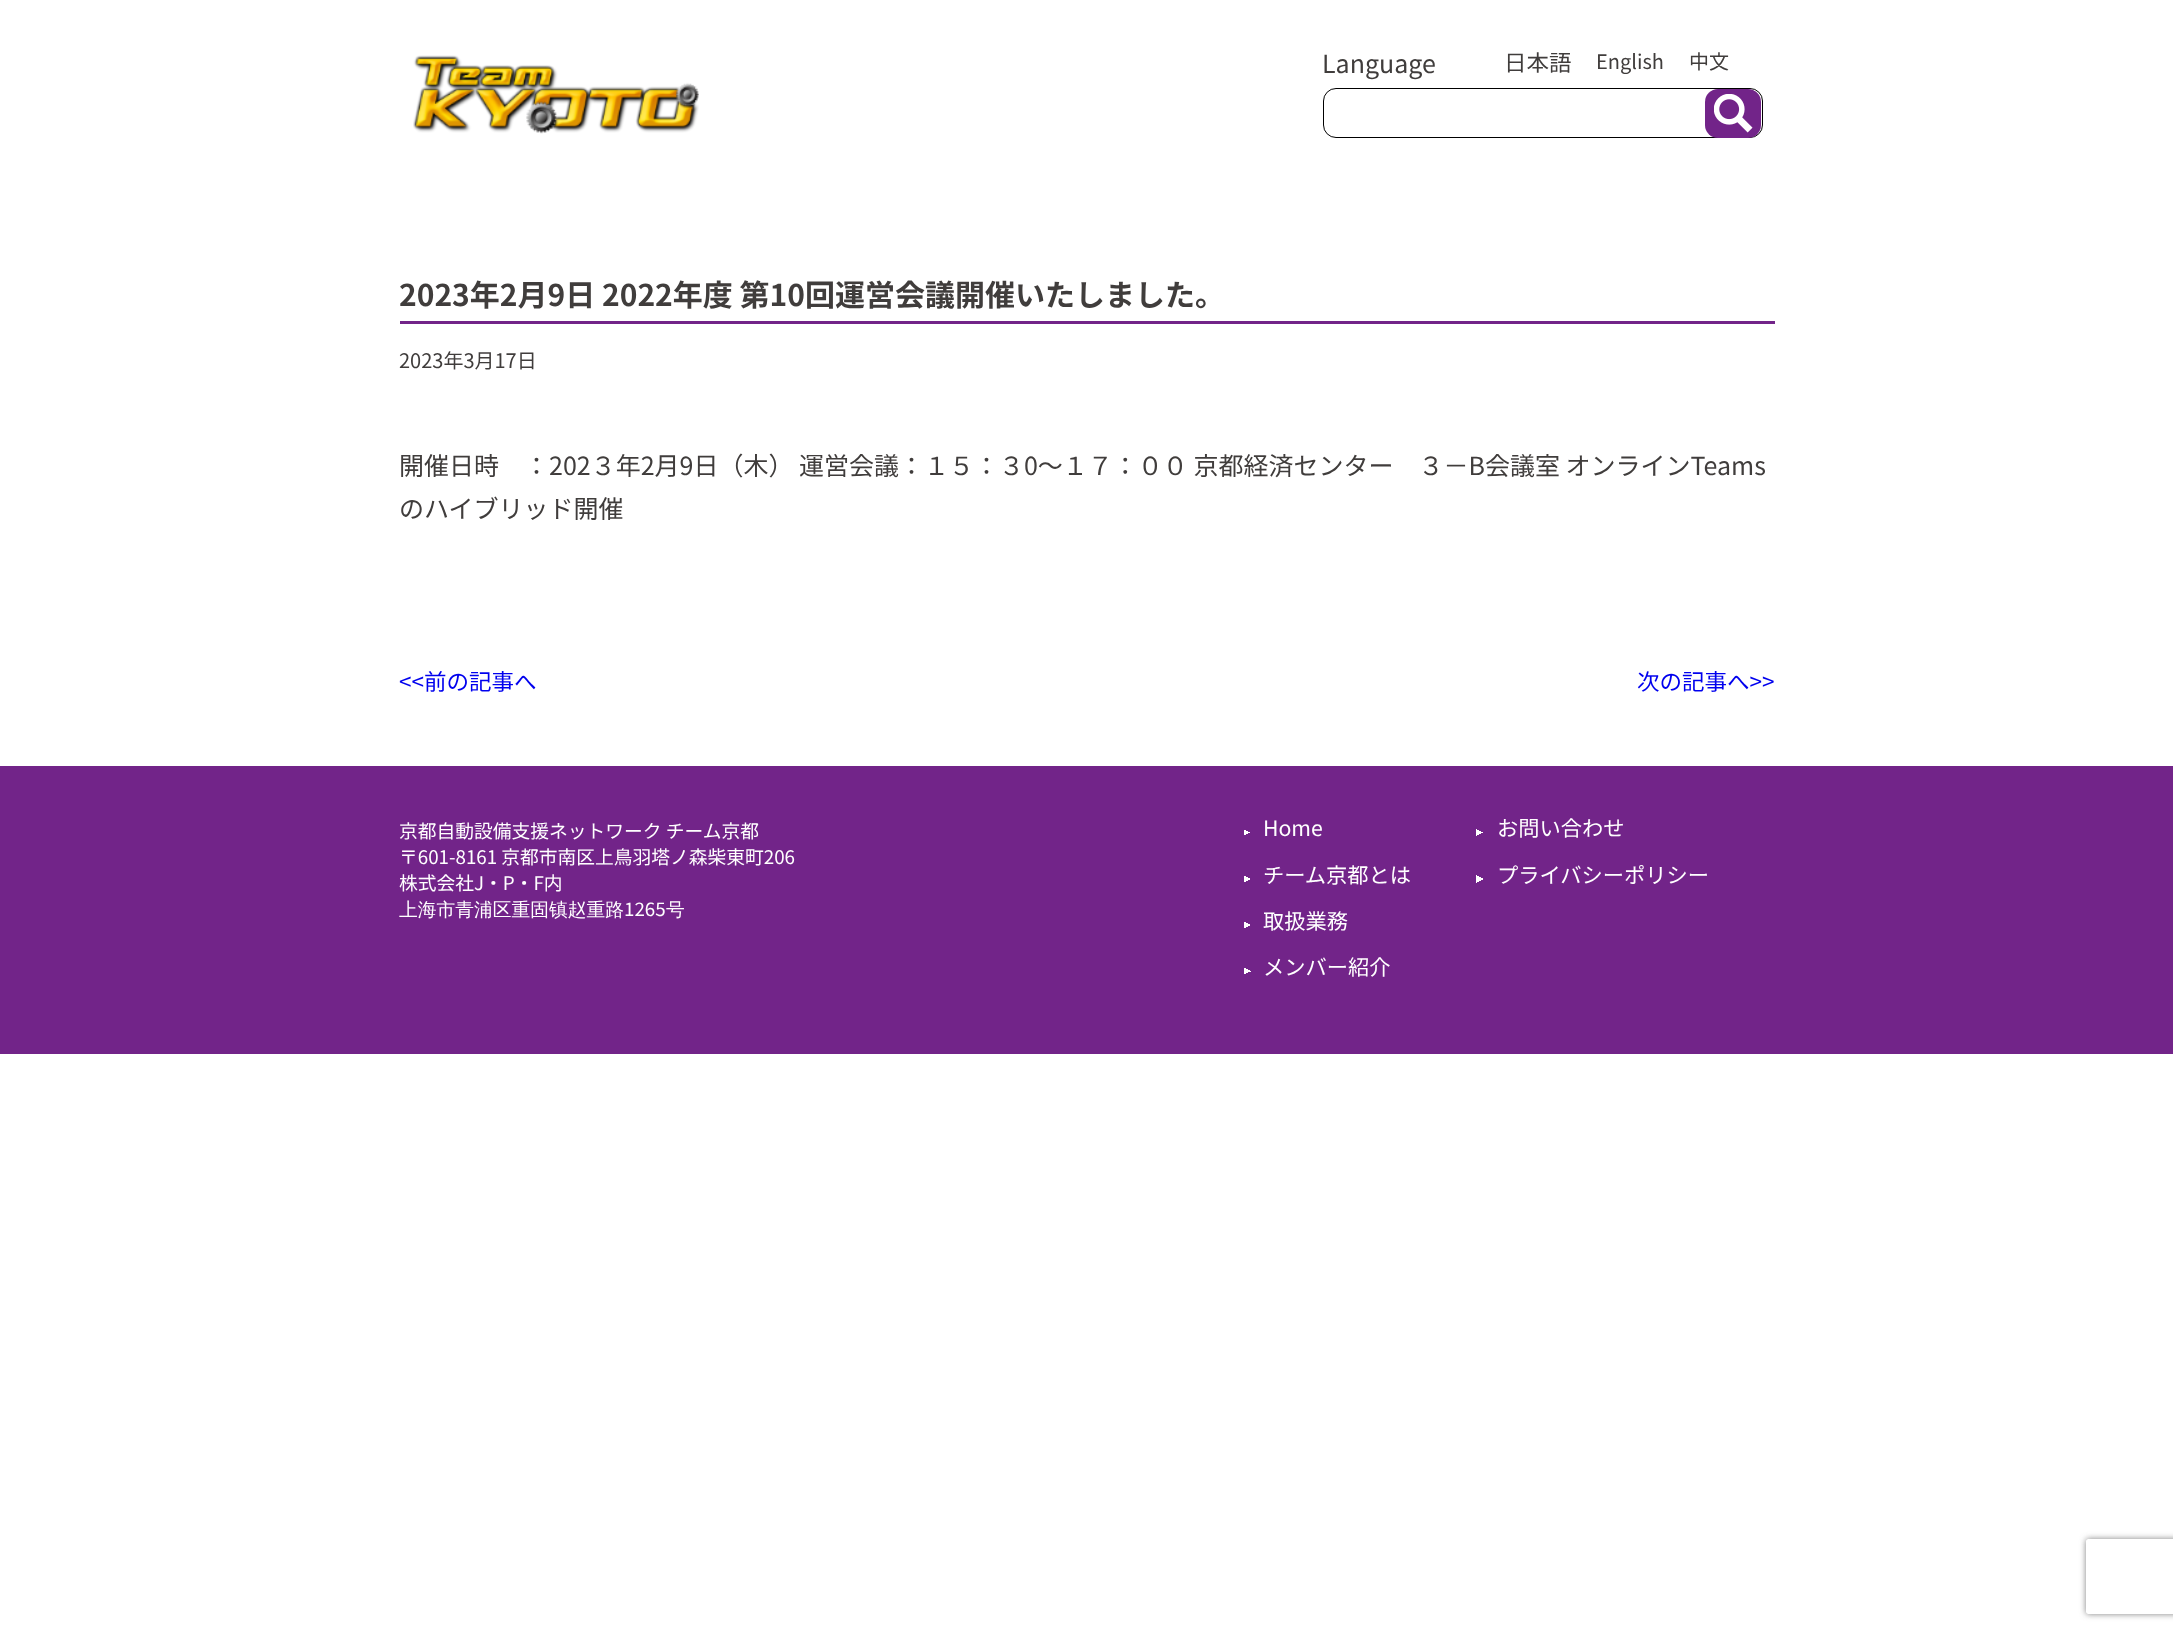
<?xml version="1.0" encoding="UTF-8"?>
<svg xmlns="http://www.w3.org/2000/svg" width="2173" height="1631">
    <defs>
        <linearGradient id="g1" gradientUnits="userSpaceOnUse" x1="1249" y1="837" x2="1246" y2="831"><stop offset="0.5" stop-color="#722489"/><stop offset="0.51" stop-color="#FFFFFF"/></linearGradient>
        <linearGradient id="g2" gradientUnits="userSpaceOnUse" x1="1249" y1="828" x2="1246" y2="834"><stop offset="0.5" stop-color="#722489"/><stop offset="0.51" stop-color="#FFFFFF"/></linearGradient>
        <linearGradient id="g3" gradientUnits="userSpaceOnUse" x1="1482" y1="837" x2="1479" y2="831"><stop offset="0.5" stop-color="#722489"/><stop offset="0.51" stop-color="#FFFFFF"/></linearGradient>
        <linearGradient id="g4" gradientUnits="userSpaceOnUse" x1="1482" y1="828" x2="1479" y2="834"><stop offset="0.5" stop-color="#722489"/><stop offset="0.51" stop-color="#FFFFFF"/></linearGradient>
        <linearGradient id="g5" gradientUnits="userSpaceOnUse" x1="1249" y1="884" x2="1246" y2="878"><stop offset="0.5" stop-color="#722489"/><stop offset="0.51" stop-color="#FFFFFF"/></linearGradient>
        <linearGradient id="g6" gradientUnits="userSpaceOnUse" x1="1249" y1="874" x2="1246" y2="880"><stop offset="0.5" stop-color="#722489"/><stop offset="0.51" stop-color="#FFFFFF"/></linearGradient>
        <linearGradient id="g7" gradientUnits="userSpaceOnUse" x1="1482" y1="884" x2="1479" y2="878"><stop offset="0.5" stop-color="#722489"/><stop offset="0.51" stop-color="#FFFFFF"/></linearGradient>
        <linearGradient id="g8" gradientUnits="userSpaceOnUse" x1="1482" y1="874" x2="1479" y2="880"><stop offset="0.5" stop-color="#722489"/><stop offset="0.51" stop-color="#FFFFFF"/></linearGradient>
        <linearGradient id="g9" gradientUnits="userSpaceOnUse" x1="1249" y1="930" x2="1246" y2="924"><stop offset="0.5" stop-color="#722489"/><stop offset="0.51" stop-color="#FFFFFF"/></linearGradient>
        <linearGradient id="g10" gradientUnits="userSpaceOnUse" x1="1249" y1="920" x2="1246" y2="926"><stop offset="0.5" stop-color="#722489"/><stop offset="0.51" stop-color="#FFFFFF"/></linearGradient>
        <linearGradient id="g11" gradientUnits="userSpaceOnUse" x1="1249" y1="976" x2="1246" y2="970"><stop offset="0.5" stop-color="#722489"/><stop offset="0.51" stop-color="#FFFFFF"/></linearGradient>
        <linearGradient id="g12" gradientUnits="userSpaceOnUse" x1="1249" y1="966" x2="1246" y2="972"><stop offset="0.5" stop-color="#FFFFFF" stop-opacity="0"/><stop offset="0.51" stop-color="#FFFFFF"/></linearGradient>
        <clipPath id="clip1"><path d="M 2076 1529 H 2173 V 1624 H 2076 Z M 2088.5 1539 H 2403.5 C 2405 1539 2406 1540 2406 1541.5 V 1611.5 C 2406 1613 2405 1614 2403.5 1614 H 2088.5 C 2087 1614 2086 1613 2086 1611.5 V 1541.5 C 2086 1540 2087 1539 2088.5 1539 Z" clip-rule="evenodd"/></clipPath>
        <filter id="blur1" x="-50%" y="-200%" width="200%" height="500%"><feGaussianBlur stdDeviation="3"/></filter>
    </defs>
    <rect width="100%" height="100%" fill="#FFFFFF"/>
    <image x="413" y="55" width="286" height="79" href="img_01.png"/>
    <text x="1322" y="73" font-family="Noto Sans JP" font-size="25" fill="#403D3C">Language</text>
    <text x="1504" y="71" font-family="Noto Sans JP" font-size="22.5" fill="#403D3C">日本語</text>
    <text x="1596" y="69" font-family="Noto Sans JP" font-size="20" fill="#403D3C">English</text>
    <text x="1689" y="69" font-family="Noto Sans JP" font-size="20" fill="#403D3C">中文</text>
    <rect x="1323.5" y="88.5" width="439" height="49" rx="12.5" fill="none" stroke="#000000"/>
    <rect x="1705" y="89" width="56" height="49" rx="13" fill="#722489"/>
    <image x="1714" y="94" width="39" height="39" href="img_02.png"/>
    <rect x="400" y="321" width="1375" height="3" fill="#722489"/>
    <text x="399" y="306" font-family="Noto Sans JP" font-size="30" font-weight="700" fill="#403D3C">2023年2月9日 2022年度 第10回運営会議開催いたしました。</text>
    <text x="399" y="368" font-family="Noto Sans JP" font-size="20" fill="#403D3C">2023年3月17日</text>
    <text font-family="Noto Sans JP" font-size="25" fill="#403D3C">
        <tspan x="399" y="475">開催日時　：202３年2月9日（木） 運営会議：１５：３0～１７：００ 京都経済センター　３－B会議室 オンラインTeams</tspan>
        <tspan x="399" y="518">のハイブリッド開催</tspan>
    </text>
    <text x="399" y="690" font-family="Noto Sans JP" font-size="22.5" fill="#0000EE">&lt;&lt;前の記事へ</text>
    <text x="1637" y="690" font-family="Noto Sans JP" font-size="22.5" fill="#0000EE">次の記事へ&gt;&gt;</text>
    <rect x="0" y="766" width="2173" height="288" fill="#722489"/>
    <text font-family="Noto Sans JP" font-size="18.75" fill="#FFFFFF">
        <tspan x="399" y="838">京都自動設備支援ネットワーク チーム京都</tspan>
        <tspan x="399" y="864">〒601-8161 京都市南区上鳥羽塔ノ森柴東町206</tspan>
        <tspan x="399" y="890">株式会社J・P・F内</tspan>
    </text>
    <text x="399" y="916" font-family="WenQuanYi Zen Hei" font-size="18.75" font-weight="500" fill="#FFFFFF">上海市青浦区重固镇赵重路</text>
    <text x="624" y="916" font-family="Noto Sans JP" font-size="18.75" fill="#FFFFFF">1265</text>
    <text x="666" y="916" font-family="WenQuanYi Zen Hei" font-size="18.75" font-weight="500" fill="#FFFFFF">号</text>
    <rect x="1244" y="833" width="7" height="2" fill="url(#g1)"/>
    <rect x="1244" y="830" width="7" height="3" fill="url(#g2)"/>
    <text x="1263" y="836" font-family="Noto Sans JP" font-size="21.25" fill="#FFFFFF">Home</text>
    <rect x="1476" y="833" width="8" height="3" fill="url(#g3)"/>
    <rect x="1476" y="829" width="8" height="4" fill="url(#g4)"/>
    <text x="1497" y="836" font-family="Noto Sans JP" font-size="21.25" fill="#FFFFFF">お問い合わせ</text>
    <rect x="1244" y="879" width="7" height="3" fill="url(#g5)"/>
    <rect x="1244" y="876" width="7" height="3" fill="url(#g6)"/>
    <text x="1263" y="883" font-family="Noto Sans JP" font-size="21.25" fill="#FFFFFF">チーム京都とは</text>
    <rect x="1476" y="879" width="8" height="4" fill="url(#g7)"/>
    <rect x="1476" y="875" width="8" height="4" fill="url(#g8)"/>
    <text x="1497" y="883" font-family="Noto Sans JP" font-size="21.25" fill="#FFFFFF">プライバシーポリシー</text>
    <rect x="1244" y="925" width="7" height="3" fill="url(#g9)"/>
    <rect x="1244" y="922" width="7" height="3" fill="url(#g10)"/>
    <text x="1263" y="929" font-family="Noto Sans JP" font-size="21.25" fill="#FFFFFF">取扱業務</text>
    <rect x="1244" y="972" width="7" height="2" fill="url(#g11)"/>
    <rect x="1244" y="968" width="7" height="4" fill="url(#g12)"/>
    <text x="1263" y="975" font-family="Noto Sans JP" font-size="21.25" fill="#FFFFFF">メンバー紹介</text>
    <g clip-path="url(#clip1)">
        <rect x="2086" y="1539" width="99" height="75" rx="2.5" fill="#808080" filter="url(#blur1)"/>
    </g>
</svg>
